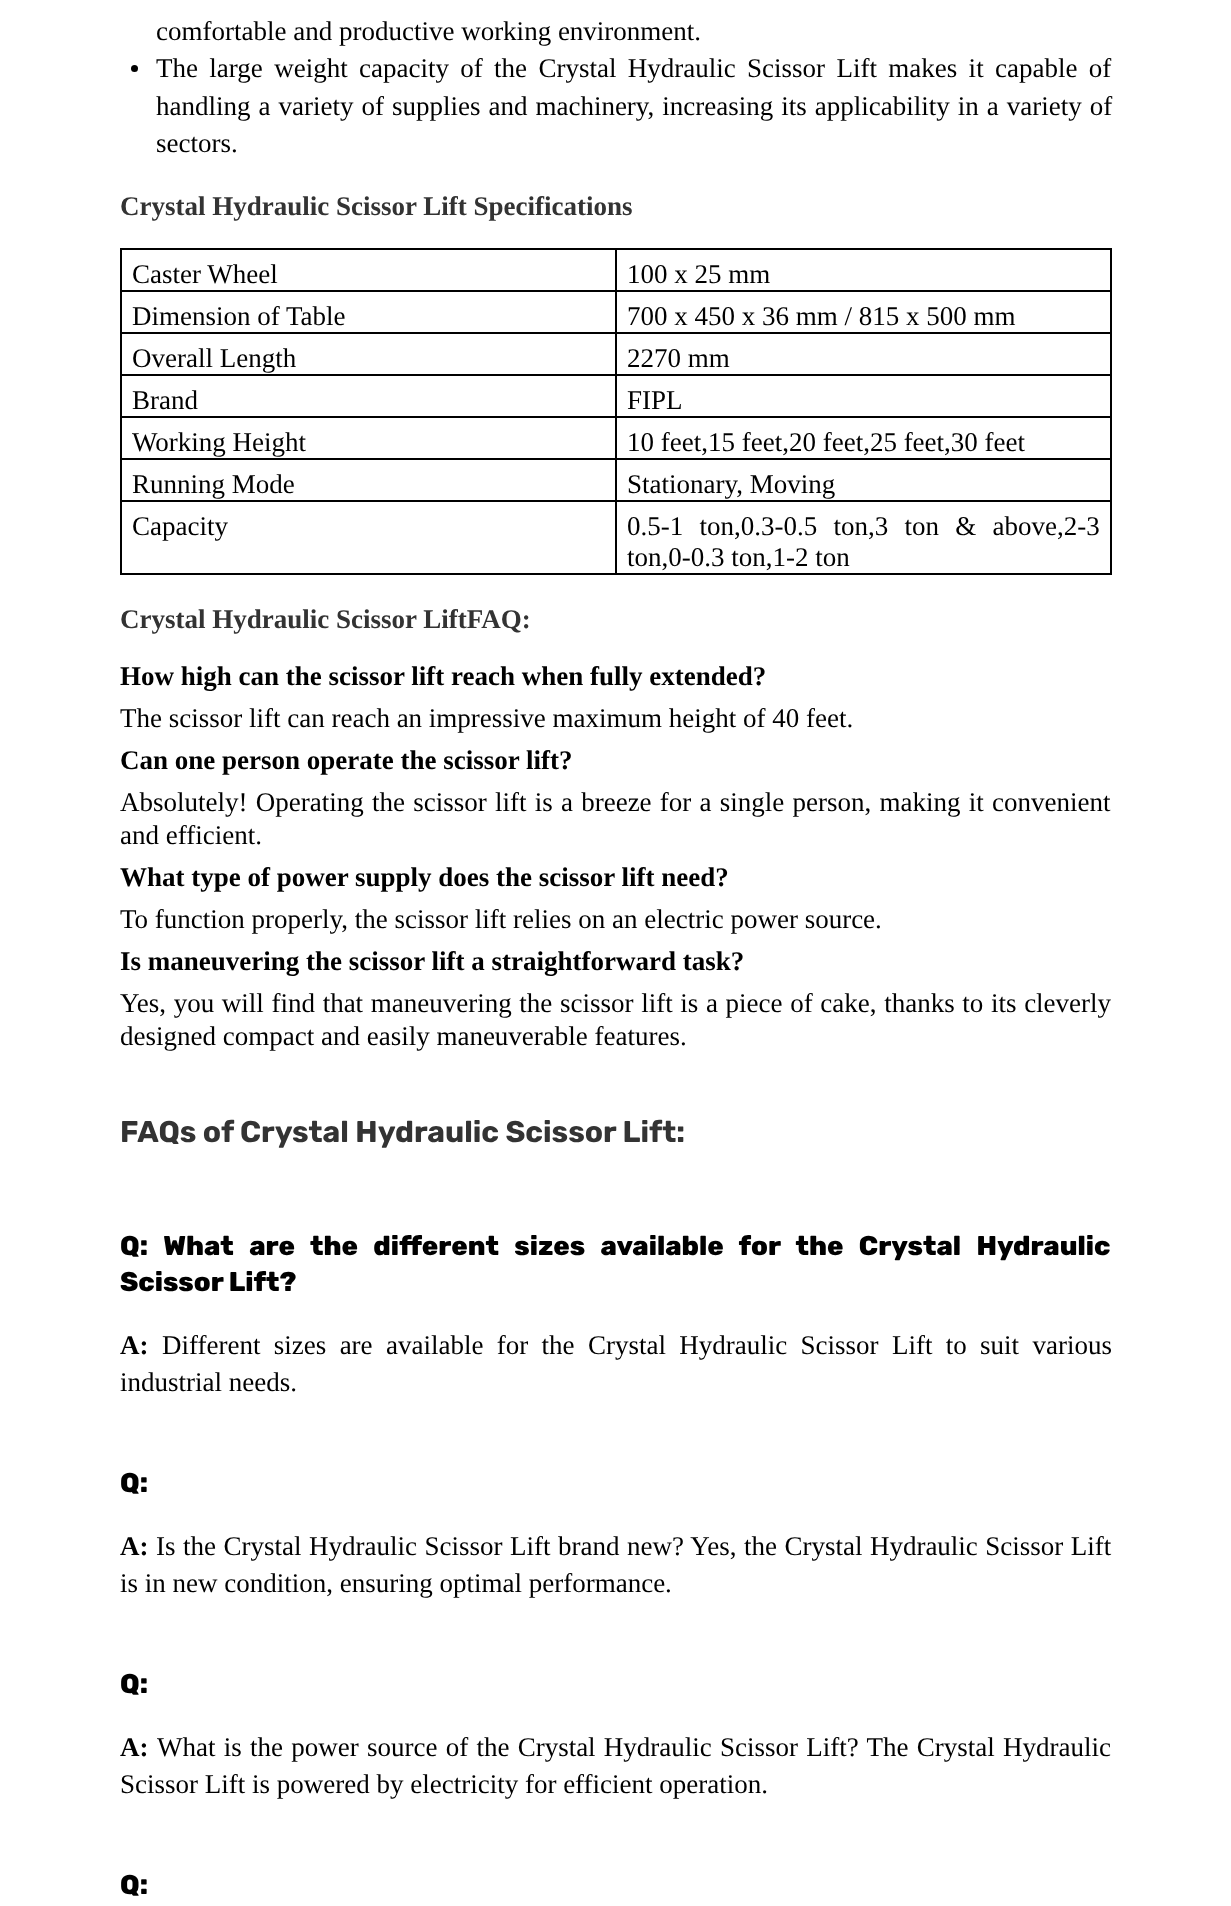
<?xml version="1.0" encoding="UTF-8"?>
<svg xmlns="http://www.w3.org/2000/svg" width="1231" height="1906">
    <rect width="100%" height="100%" fill="#FFFFFF"/>
    <text x="156" y="40" font-family="Liberation Serif" font-size="27" fill="#000000">comfortable and productive working environment.</text>
    <circle cx="134.5" cy="68.5" r="3.5" fill="#000000"/>
    <text font-family="Liberation Serif" font-size="27" fill="#000000">
        <tspan x="156" y="77" word-spacing="4.6">The large weight capacity of the Crystal Hydraulic Scissor Lift makes it capable of</tspan>
        <tspan x="156" y="115" word-spacing="1.25">handling a variety of supplies and machinery, increasing its applicability in a variety of</tspan>
        <tspan x="156" y="152">sectors.</tspan>
    </text>
    <text x="120" y="215" font-family="Liberation Serif" font-size="27" font-weight="700" fill="#333333">Crystal Hydraulic Scissor Lift Specifications</text>
    <rect x="120" y="248" width="992" height="2" fill="#000000"/>
    <rect x="1110" y="290" width="2" height="285" fill="#000000"/>
    <rect x="1110" y="248" width="2" height="43" fill="#000000"/>
    <rect x="615" y="573" width="497" height="2" fill="#000000"/>
    <rect x="615" y="500" width="2" height="75" fill="#000000"/>
    <rect x="615" y="500" width="497" height="2" fill="#000000"/>
    <rect x="615" y="458" width="2" height="43" fill="#000000"/>
    <rect x="615" y="458" width="497" height="2" fill="#000000"/>
    <rect x="615" y="416" width="2" height="43" fill="#000000"/>
    <rect x="615" y="416" width="497" height="2" fill="#000000"/>
    <rect x="615" y="374" width="2" height="43" fill="#000000"/>
    <rect x="615" y="374" width="497" height="2" fill="#000000"/>
    <rect x="615" y="332" width="2" height="43" fill="#000000"/>
    <rect x="615" y="332" width="497" height="2" fill="#000000"/>
    <rect x="615" y="290" width="2" height="43" fill="#000000"/>
    <rect x="615" y="290" width="497" height="2" fill="#000000"/>
    <rect x="615" y="248" width="2" height="43" fill="#000000"/>
    <rect x="120" y="573" width="497" height="2" fill="#000000"/>
    <rect x="120" y="500" width="2" height="75" fill="#000000"/>
    <rect x="120" y="500" width="497" height="2" fill="#000000"/>
    <rect x="120" y="458" width="2" height="43" fill="#000000"/>
    <rect x="120" y="458" width="497" height="2" fill="#000000"/>
    <rect x="120" y="416" width="2" height="43" fill="#000000"/>
    <rect x="120" y="416" width="497" height="2" fill="#000000"/>
    <rect x="120" y="374" width="2" height="43" fill="#000000"/>
    <rect x="120" y="374" width="497" height="2" fill="#000000"/>
    <rect x="120" y="332" width="2" height="43" fill="#000000"/>
    <rect x="120" y="332" width="497" height="2" fill="#000000"/>
    <rect x="120" y="290" width="2" height="43" fill="#000000"/>
    <rect x="120" y="290" width="497" height="2" fill="#000000"/>
    <rect x="120" y="248" width="2" height="43" fill="#000000"/>
    <text x="132" y="283" font-family="Liberation Serif" font-size="27" fill="#000000">Caster Wheel</text>
    <text x="627" y="283" font-family="Liberation Serif" font-size="27" fill="#000000">100 x 25 mm</text>
    <text x="132" y="325" font-family="Liberation Serif" font-size="27" fill="#000000">Dimension of Table</text>
    <text x="627" y="325" font-family="Liberation Serif" font-size="27" fill="#000000">700 x 450 x 36 mm / 815 x 500 mm</text>
    <text x="132" y="367" font-family="Liberation Serif" font-size="27" fill="#000000">Overall Length</text>
    <text x="627" y="367" font-family="Liberation Serif" font-size="27" fill="#000000">2270 mm</text>
    <text x="132" y="409" font-family="Liberation Serif" font-size="27" fill="#000000">Brand</text>
    <text x="627" y="409" font-family="Liberation Serif" font-size="27" fill="#000000">FIPL</text>
    <text x="132" y="451" font-family="Liberation Serif" font-size="27" fill="#000000">Working Height</text>
    <text x="627" y="451" font-family="Liberation Serif" font-size="27" fill="#000000">10 feet,15 feet,20 feet,25 feet,30 feet</text>
    <text x="132" y="493" font-family="Liberation Serif" font-size="27" fill="#000000">Running Mode</text>
    <text x="627" y="493" font-family="Liberation Serif" font-size="27" fill="#000000">Stationary, Moving</text>
    <text x="132" y="535" font-family="Liberation Serif" font-size="27" fill="#000000">Capacity</text>
    <text font-family="Liberation Serif" font-size="27" fill="#000000">
        <tspan x="627" y="535" word-spacing="9.5">0.5-1 ton,0.3-0.5 ton,3 ton &amp; above,2-3</tspan>
        <tspan x="627" y="566">ton,0-0.3 ton,1-2 ton</tspan>
    </text>
    <text x="120" y="628" font-family="Liberation Serif" font-size="27" font-weight="700" fill="#333333">Crystal Hydraulic Scissor LiftFAQ:</text>
    <text x="120" y="685" font-family="Liberation Serif" font-size="27" font-weight="700" fill="#000000">How high can the scissor lift reach when fully extended?</text>
    <text x="120" y="727" font-family="Liberation Serif" font-size="27" fill="#000000">The scissor lift can reach an impressive maximum height of 40 feet.</text>
    <text x="120" y="769" font-family="Liberation Serif" font-size="27" font-weight="700" fill="#000000">Can one person operate the scissor lift?</text>
    <text font-family="Liberation Serif" font-size="27" fill="#000000">
        <tspan x="120" y="811" word-spacing="1.5">Absolutely! Operating the scissor lift is a breeze for a single person, making it convenient</tspan>
        <tspan x="120" y="844">and efficient.</tspan>
    </text>
    <text x="120" y="886" font-family="Liberation Serif" font-size="27" font-weight="700" fill="#000000">What type of power supply does the scissor lift need?</text>
    <text x="120" y="928" font-family="Liberation Serif" font-size="27" fill="#000000">To function properly, the scissor lift relies on an electric power source.</text>
    <text x="120" y="970" font-family="Liberation Serif" font-size="27" font-weight="700" fill="#000000">Is maneuvering the scissor lift a straightforward task?</text>
    <text font-family="Liberation Serif" font-size="27" fill="#000000">
        <tspan x="120" y="1012" word-spacing="0.9">Yes, you will find that maneuvering the scissor lift is a piece of cake, thanks to its cleverly</tspan>
        <tspan x="120" y="1045">designed compact and easily maneuverable features.</tspan>
    </text>
    <text x="120" y="1142" font-family="Rubik" font-size="30" font-weight="700" fill="#333333">FAQs of Crystal Hydraulic Scissor Lift:</text>
    <text font-family="Rubik" font-size="27" font-weight="800" fill="#000000">
        <tspan x="120" y="1255" word-spacing="10">Q: What are the different sizes available for the Crystal Hydraulic</tspan>
        <tspan x="120" y="1291">Scissor Lift?</tspan>
    </text>
    <text x="120" y="1354" font-family="Liberation Serif" font-size="27" font-weight="700" fill="#000000">A:</text>
    <text x="162" y="1354" word-spacing="6.6" font-family="Liberation Serif" font-size="27" fill="#000000">Different sizes are available for the Crystal Hydraulic Scissor Lift to suit various</text>
    <text x="120" y="1391" font-family="Liberation Serif" font-size="27" fill="#000000">industrial needs.</text>
    <text x="120" y="1492" font-family="Rubik" font-size="27" font-weight="800" fill="#000000">Q:</text>
    <text x="120" y="1555" font-family="Liberation Serif" font-size="27" font-weight="700" fill="#000000">A:</text>
    <text x="156" y="1555" word-spacing="0.75" font-family="Liberation Serif" font-size="27" fill="#000000">Is the Crystal Hydraulic Scissor Lift brand new? Yes, the Crystal Hydraulic Scissor Lift</text>
    <text x="120" y="1592" font-family="Liberation Serif" font-size="27" fill="#000000">is in new condition, ensuring optimal performance.</text>
    <text x="120" y="1693" font-family="Rubik" font-size="27" font-weight="800" fill="#000000">Q:</text>
    <text x="120" y="1756" font-family="Liberation Serif" font-size="27" font-weight="700" fill="#000000">A:</text>
    <text x="157" y="1756" word-spacing="1.5" font-family="Liberation Serif" font-size="27" fill="#000000">What is the power source of the Crystal Hydraulic Scissor Lift? The Crystal Hydraulic</text>
    <text x="120" y="1793" font-family="Liberation Serif" font-size="27" fill="#000000">Scissor Lift is powered by electricity for efficient operation.</text>
    <text x="120" y="1894" font-family="Rubik" font-size="27" font-weight="800" fill="#000000">Q:</text>
</svg>
